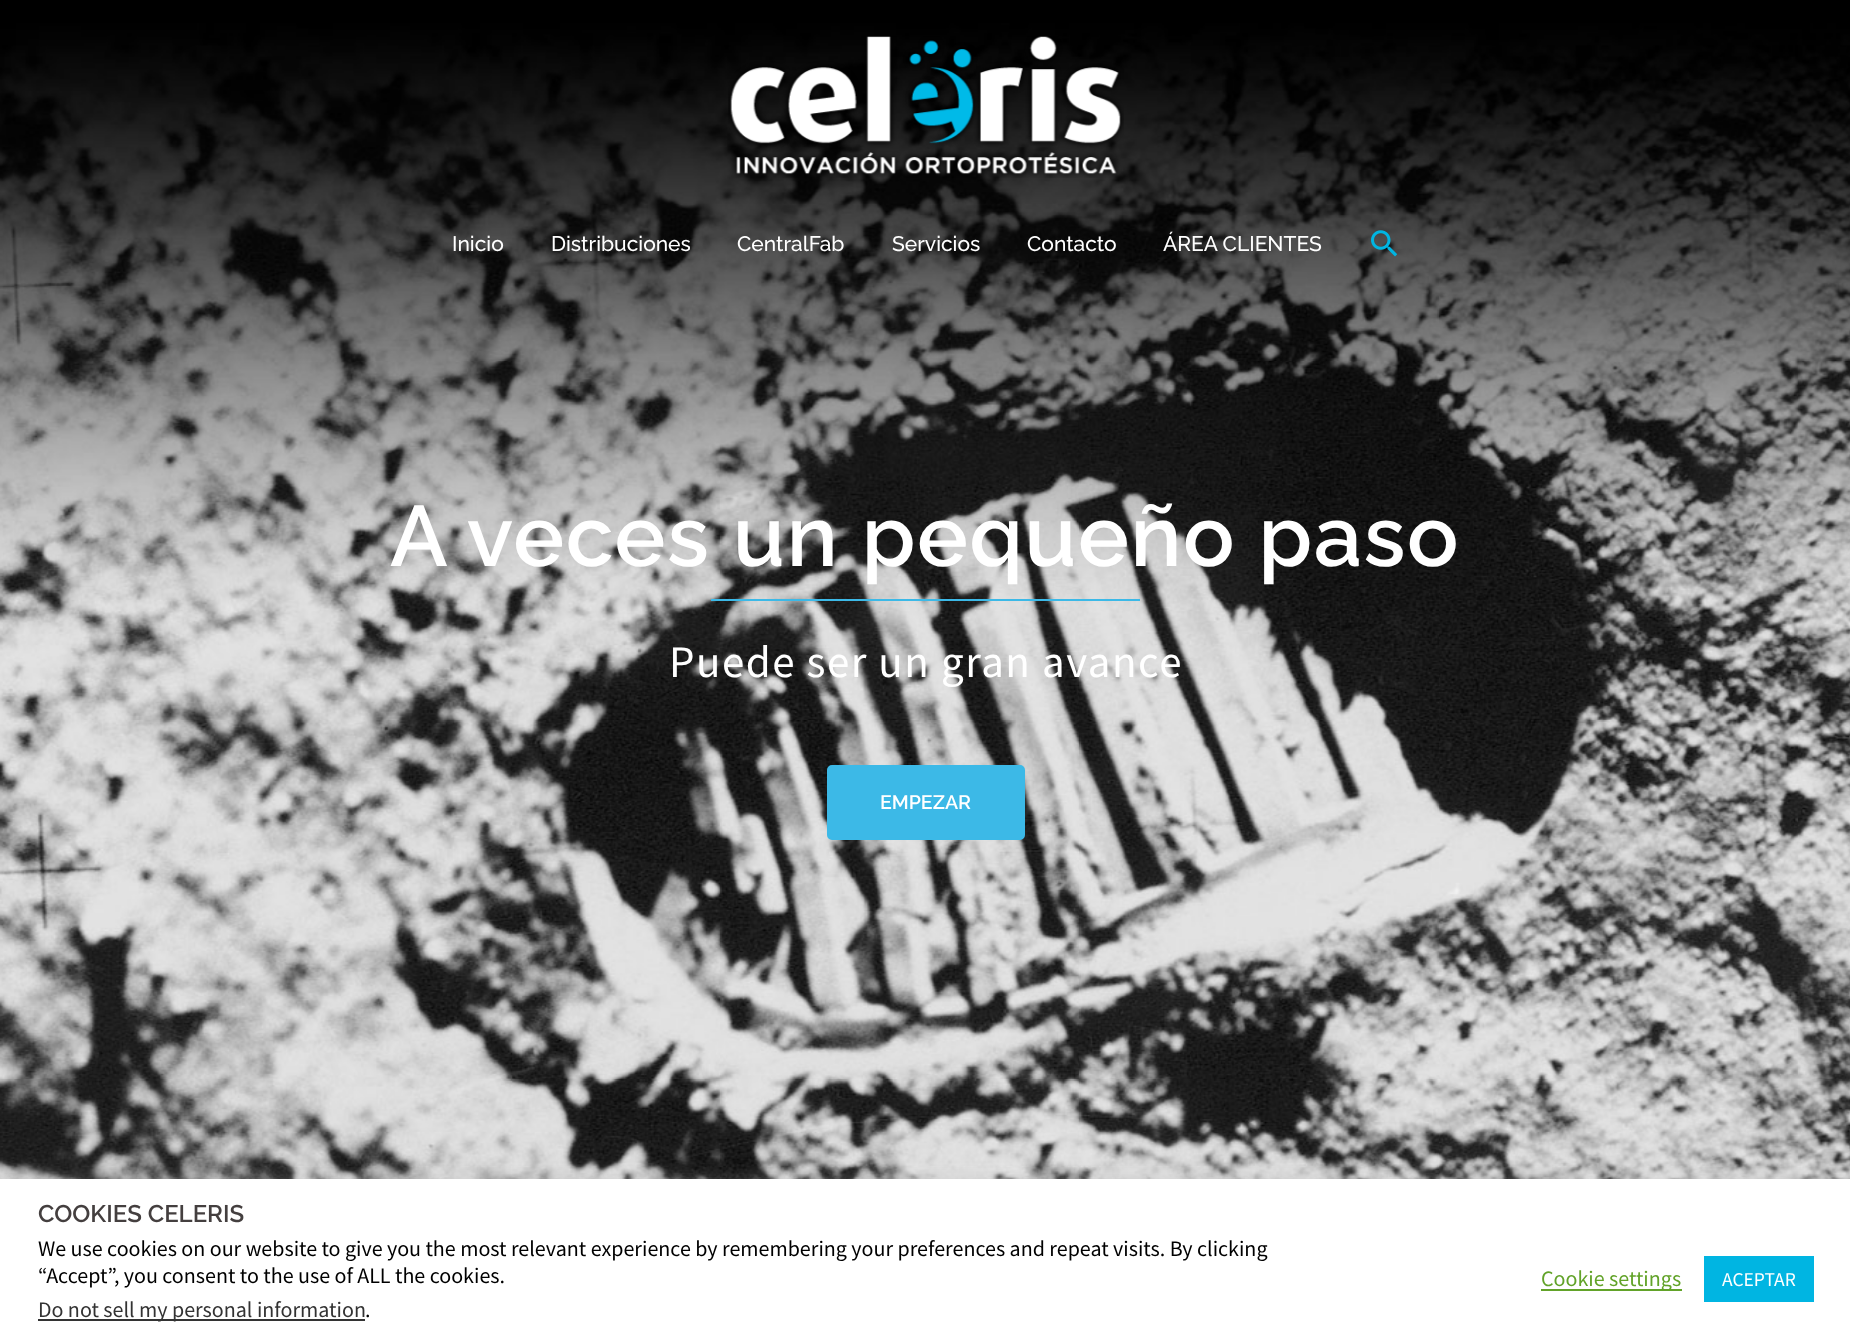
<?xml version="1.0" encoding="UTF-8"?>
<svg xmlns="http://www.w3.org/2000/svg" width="1850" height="1344">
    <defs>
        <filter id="blur1" x="-50%" y="-200%" width="200%" height="500%"><feGaussianBlur stdDeviation="7.5"/></filter>
    </defs>
    <rect width="100%" height="100%" fill="#FFFFFF"/>
    <image x="0" y="0" width="1850" height="1179" href="img_03.png"/>
    <image x="728" y="36" width="396" height="142" href="img_01.png"/>
    <text x="452" y="251" font-family="Raleway" font-size="21" font-weight="500" fill="#FFFFFF">Inicio</text>
    <text x="551" y="251" font-family="Raleway" font-size="21" font-weight="500" fill="#FFFFFF">Distribuciones</text>
    <text x="737" y="251" font-family="Raleway" font-size="21" font-weight="500" fill="#FFFFFF">CentralFab</text>
    <text x="892" y="251" font-family="Raleway" font-size="21" font-weight="500" fill="#FFFFFF">Servicios</text>
    <text x="1027" y="251" font-family="Raleway" font-size="21" font-weight="500" fill="#FFFFFF">Contacto</text>
    <text x="1163" y="251" font-family="Raleway" font-size="21" font-weight="500" fill="#FFFFFF">ÁREA CLIENTES</text>
    <image x="1371" y="230" width="27" height="27" href="img_02.png"/>
    <text x="390" y="566" font-family="Raleway" font-size="85.5" font-weight="600" letter-spacing="1.5" fill="#FFFFFF">A veces un pequeño paso</text>
    <rect x="711" y="599" width="429" height="2" fill="#3CB9E7"/>
    <text x="669" y="677" font-family="Source Sans Pro" font-size="45" letter-spacing="1.5" fill="#FFFFFF">Puede ser un gran avance</text>
    <rect x="828" y="766" width="196" height="73" rx="4" fill="#3CB9E7" stroke="#3CB9E7" stroke-width="2"/>
    <text x="880" y="809" font-family="Raleway" font-size="19.5" font-weight="600" fill="#FFFFFF">EMPEZAR</text>
    <rect x="0" y="1178" width="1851" height="165" fill="#ACABAB" fill-opacity="0.3" filter="url(#blur1)"/>
    <rect x="0" y="1179" width="1850" height="165" fill="#FFFFFF"/>
    <text x="38" y="1222" font-family="Raleway" font-size="24" font-weight="600" fill="#443F3F">COOKIES CELERIS</text>
    <text font-family="Source Sans Pro" font-size="22" fill="#000000">
        <tspan x="38" y="1256">We use cookies on our website to give you the most relevant experience by remembering your preferences and repeat visits. By clicking</tspan>
        <tspan x="38" y="1283">“Accept”, you consent to the use of ALL the cookies.</tspan>
    </text>
    <rect x="38" y="1319" width="327" height="2" fill="#333333"/>
    <text x="38" y="1317" font-family="Source Sans Pro" font-size="22" fill="#333333">Do not sell my personal information</text>
    <text x="365" y="1317" font-family="Source Sans Pro" font-size="22" fill="#000000">.</text>
    <rect x="1541" y="1289" width="141" height="2" fill="#62A329"/>
    <text x="1541" y="1286" font-family="Source Sans Pro" font-size="22" fill="#62A329">Cookie settings</text>
    <rect x="1704" y="1256" width="110" height="46" fill="#00B5E2"/>
    <text x="1722" y="1286" font-family="Source Sans Pro" font-size="19.5" fill="#FFFFFF">ACEPTAR</text>
</svg>
